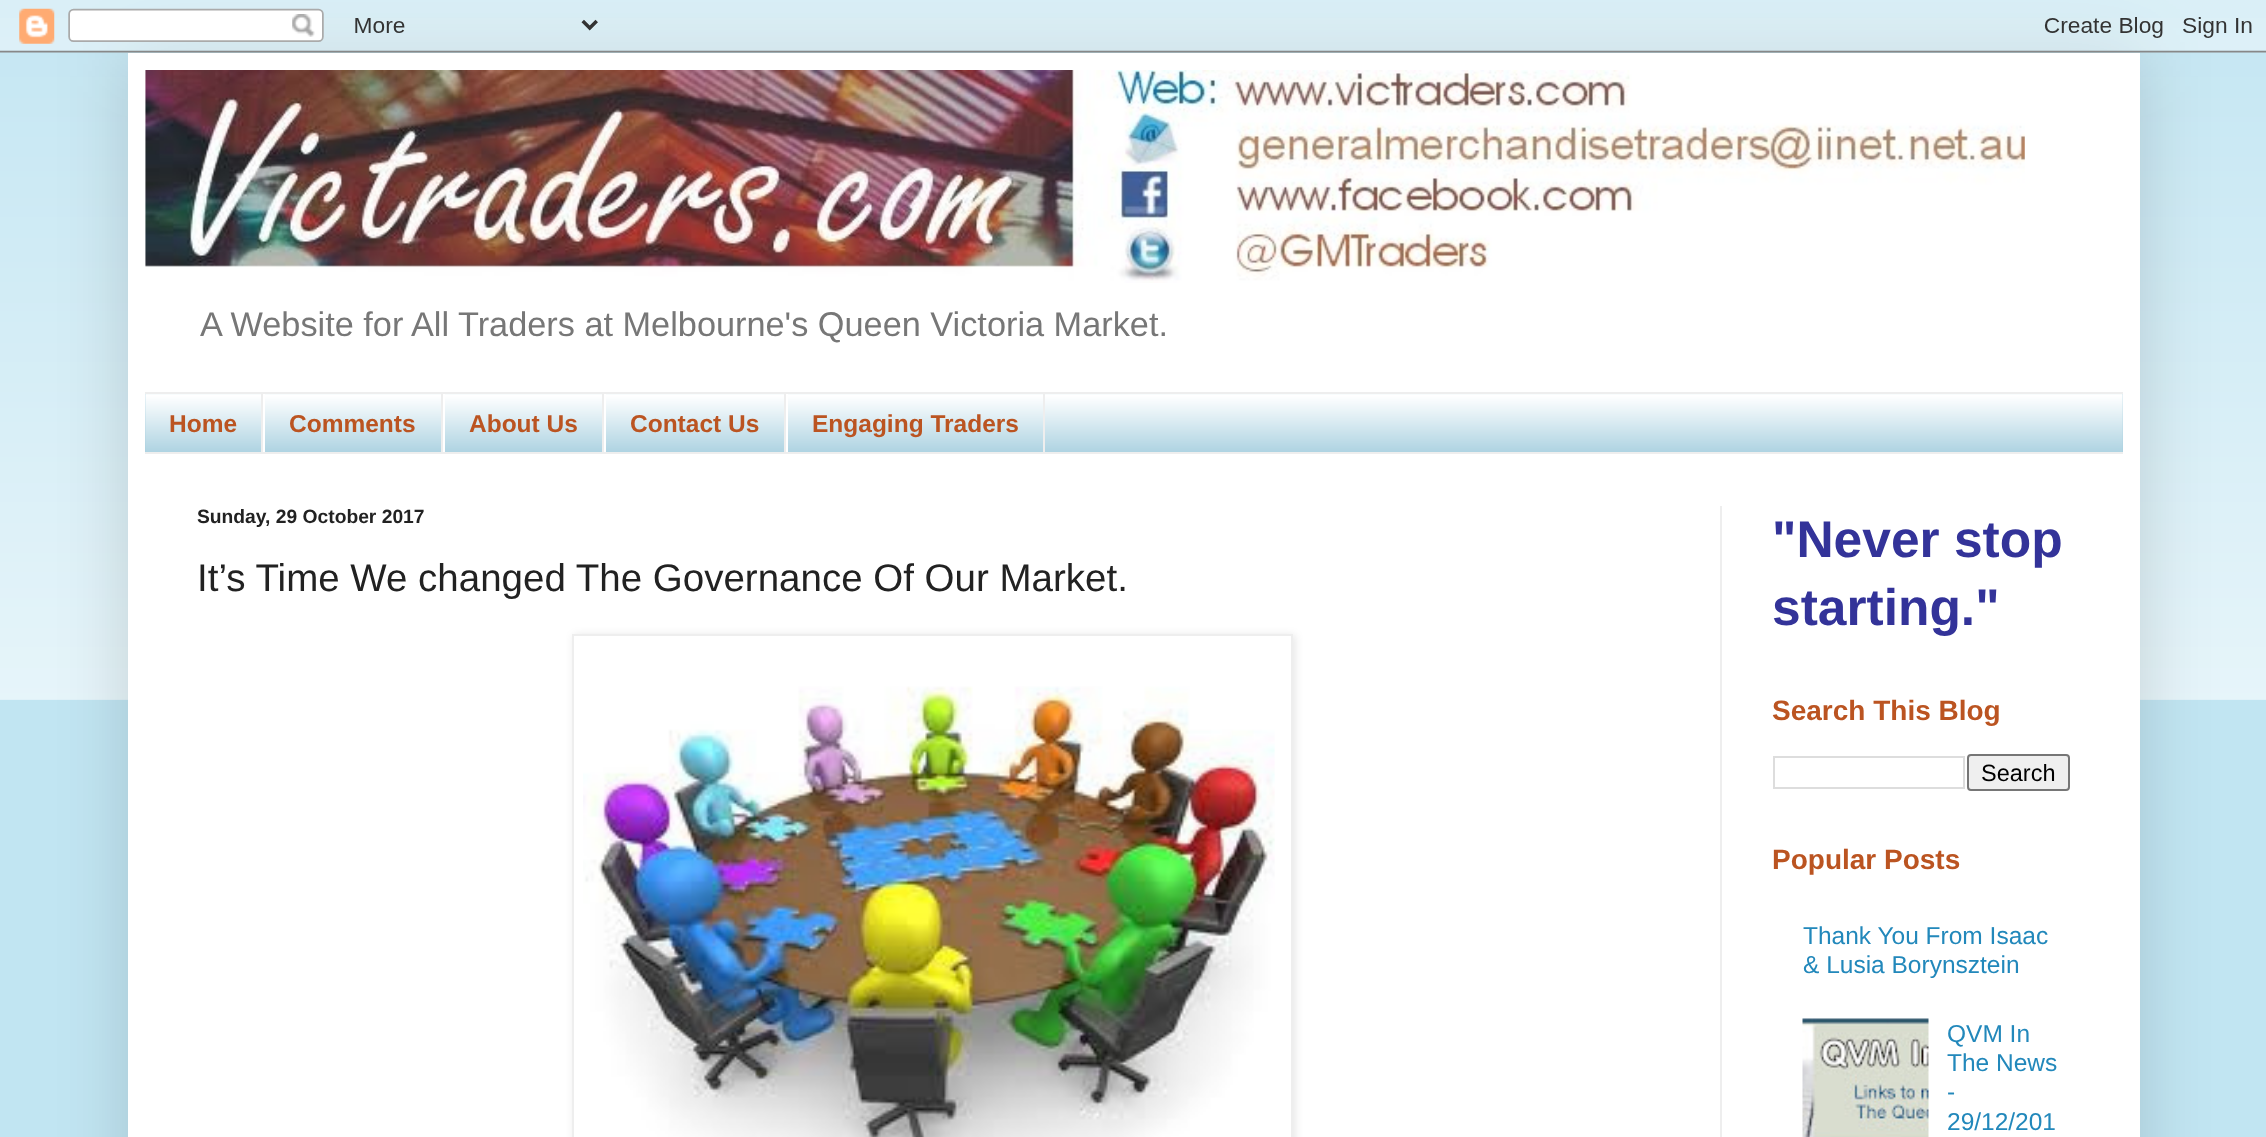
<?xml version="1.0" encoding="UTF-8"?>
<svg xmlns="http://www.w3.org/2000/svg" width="2266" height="1137">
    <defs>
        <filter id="blur1" x="-50%" y="-200%" width="200%" height="500%"><feGaussianBlur stdDeviation="35"/></filter>
        <filter id="blur2" x="-50%" y="-200%" width="200%" height="500%"><feGaussianBlur stdDeviation="4.5"/></filter>
    </defs>
    <rect width="100%" height="100%" fill="#C1E5F2"/>
    <image x="0" y="18" width="2266" height="682" href="img_02.png"/>
    <rect x="128" y="53" width="2012" height="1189" fill="#000000" fill-opacity="0.15" filter="url(#blur1)"/>
    <image x="0" y="0" width="2266" height="53" href="img_01.png"/>
    <rect x="128" y="53" width="2012" height="1084" fill="#FFFFFF"/>
    <image x="145" y="70" width="1880" height="213" href="img_03.png"/>
    <text x="200" y="336" font-family="Liberation Sans" font-size="34.3" fill="#777777">A Website for All Traders at Melbourne's Queen Victoria Market.</text>
    <rect x="145" y="394" width="1978" height="58" fill="#A1CCDD"/>
    <image x="145" y="394" width="1978" height="58" href="img_04.png"/>
    <rect x="145" y="392" width="1978" height="2" fill="#EEEEEE"/>
    <rect x="145" y="452" width="1978" height="2" fill="#EEEEEE"/>
    <rect x="261" y="394" width="2" height="58" fill="#EEEEEE"/>
    <text x="169" y="432" font-family="Liberation Sans" font-size="24.5" font-weight="700" fill="#BB5421">Home</text>
    <rect x="441" y="394" width="2" height="58" fill="#EEEEEE"/>
    <rect x="263" y="394" width="2" height="58" fill="#FFFFFF"/>
    <text x="289" y="432" font-family="Liberation Sans" font-size="24.5" font-weight="700" fill="#BB5421">Comments</text>
    <rect x="602" y="394" width="2" height="58" fill="#EEEEEE"/>
    <rect x="443" y="394" width="2" height="58" fill="#FFFFFF"/>
    <text x="469" y="432" font-family="Liberation Sans" font-size="24.5" font-weight="700" fill="#BB5421">About Us</text>
    <rect x="784" y="394" width="2" height="58" fill="#EEEEEE"/>
    <rect x="604" y="394" width="2" height="58" fill="#FFFFFF"/>
    <text x="630" y="432" font-family="Liberation Sans" font-size="24.5" font-weight="700" fill="#BB5421">Contact Us</text>
    <rect x="1043" y="394" width="2" height="58" fill="#EEEEEE"/>
    <rect x="786" y="394" width="2" height="58" fill="#FFFFFF"/>
    <text x="812" y="432" font-family="Liberation Sans" font-size="24.5" font-weight="700" fill="#BB5421">Engaging Traders</text>
    <rect x="1720" y="506" width="2" height="631" fill="#EEEEEE"/>
    <text x="197" y="523" font-family="Liberation Sans" font-size="19.25" font-weight="700" fill="#222222">Sunday, 29 October 2017</text>
    <text x="197" y="591" font-family="Liberation Sans" font-size="38.5" fill="#222222">It’s Time We changed The Governance Of Our Market.</text>
    <rect x="574" y="635" width="721" height="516" fill="#000000" fill-opacity="0.1" filter="url(#blur2)"/>
    <rect x="573" y="635" width="719" height="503" fill="#FFFFFF" stroke="#EEEEEE" stroke-width="2"/>
    <image x="583" y="686" width="692" height="451" href="img_05.png"/>
    <text font-family="Liberation Sans" font-size="51.5" font-weight="700" fill="#333399">
        <tspan x="1772" y="557">"Never stop</tspan>
        <tspan x="1772" y="625">starting."</tspan>
    </text>
    <text x="1772" y="720" font-family="Liberation Sans" font-size="28" font-weight="700" fill="#BB5421">Search This Blog</text>
    <rect x="1774" y="757" width="190" height="31" fill="none" stroke="#DDDDDD" stroke-width="2"/>
    <rect x="1968" y="755" width="101" height="35" rx="3" fill="#EFEFEF" stroke="#767676" stroke-width="2"/>
    <text x="1981" y="781" font-family="Liberation Sans" font-size="23.5" fill="#000000">Search</text>
    <text x="1772" y="869" font-family="Liberation Sans" font-size="28" font-weight="700" fill="#BB5421">Popular Posts</text>
    <text font-family="Liberation Sans" font-size="24.5" fill="#2288BB">
        <tspan x="1803" y="944">Thank You From Isaac</tspan>
        <tspan x="1803" y="973">&amp; Lusia Borynsztein</tspan>
    </text>
    <image x="1802" y="1018" width="127" height="119" href="img_06.png"/>
    <text font-family="Liberation Sans" font-size="24.5" fill="#2288BB">
        <tspan x="1947" y="1042">QVM In</tspan>
        <tspan x="1947" y="1071">The News</tspan>
        <tspan x="1947" y="1100">-</tspan>
        <tspan x="1947" y="1130">29/12/201</tspan>
    </text>
</svg>
